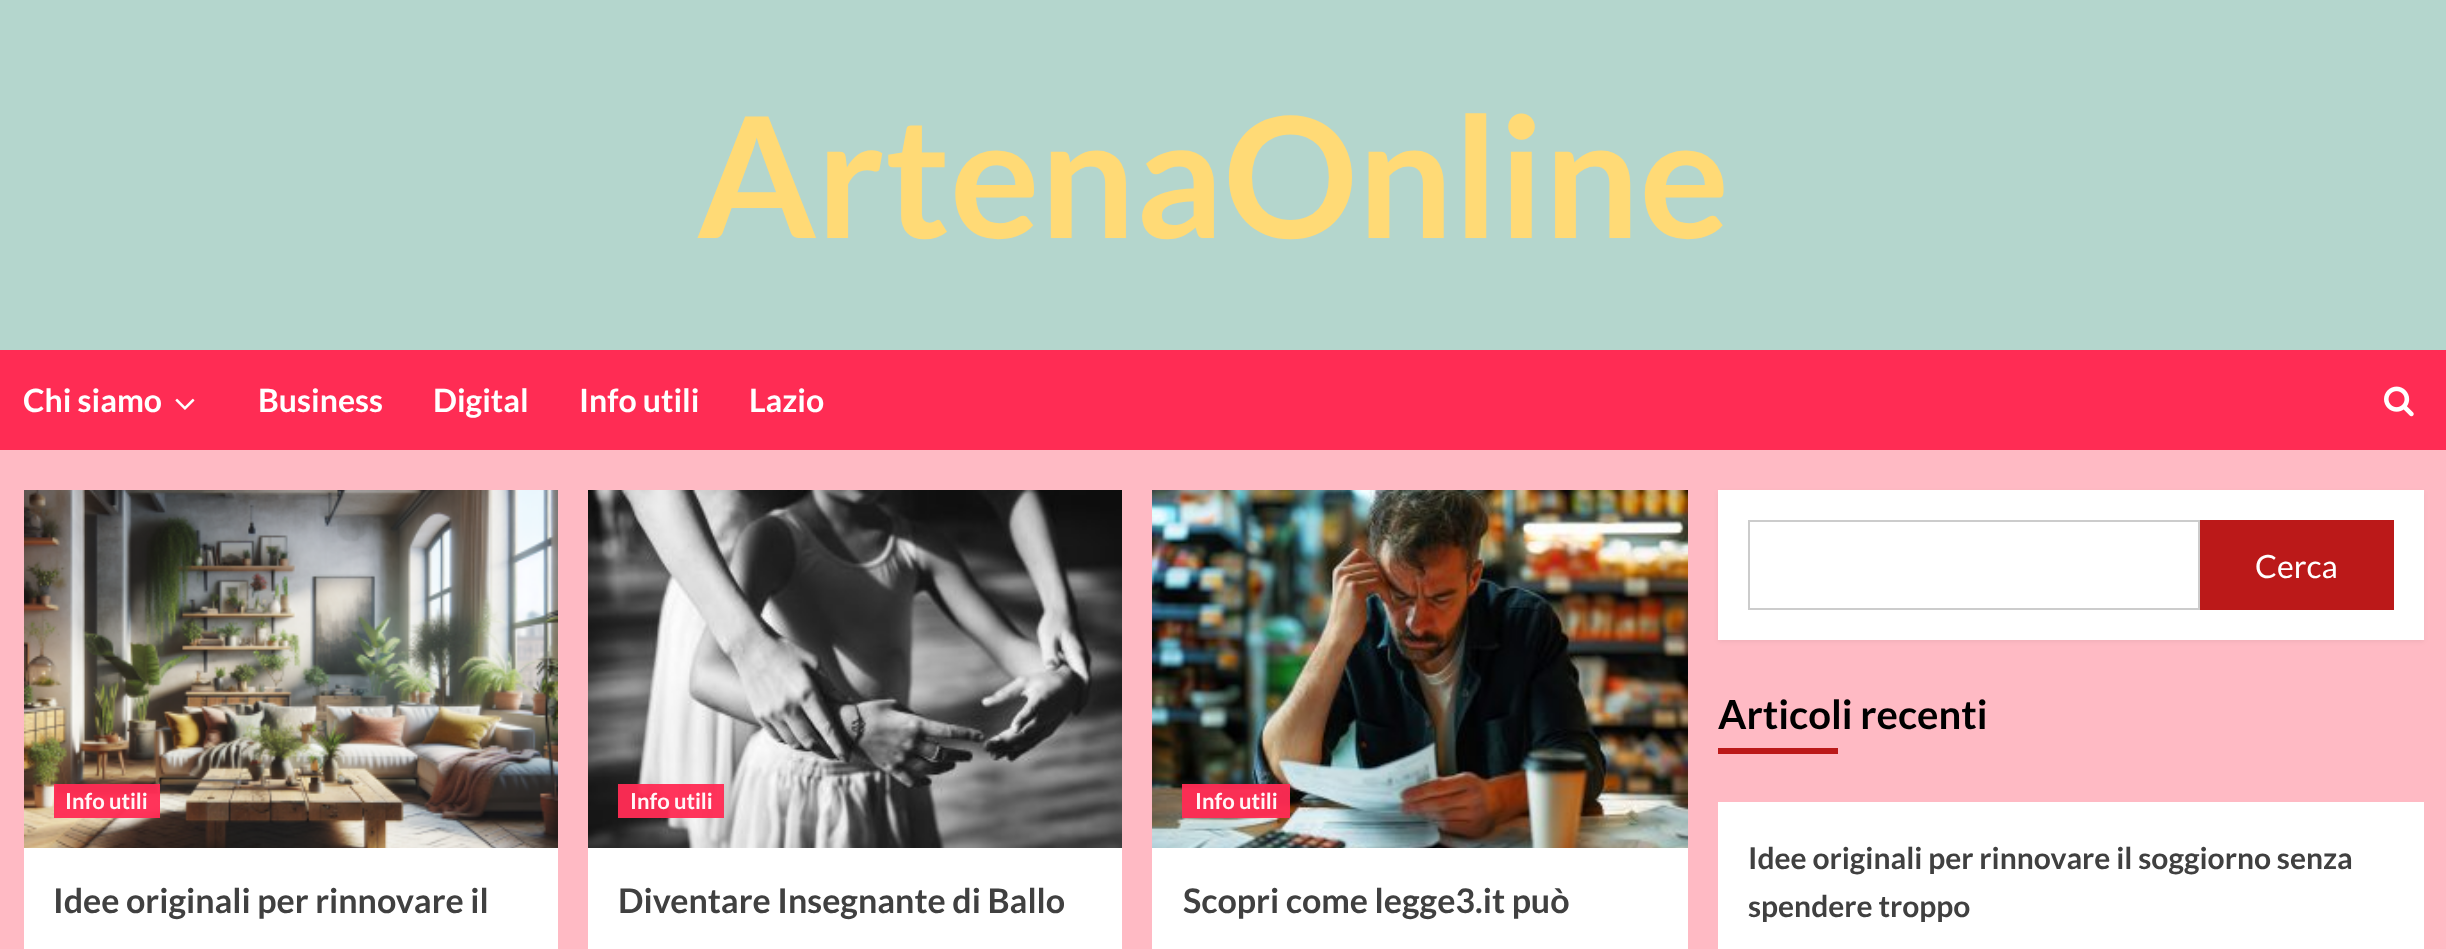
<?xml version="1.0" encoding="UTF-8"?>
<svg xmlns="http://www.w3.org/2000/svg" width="2446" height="949">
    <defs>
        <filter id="blur1" x="-50%" y="-200%" width="200%" height="500%"><feGaussianBlur stdDeviation="2"/></filter>
    </defs>
    <rect width="100%" height="100%" fill="#FFBAC4"/>
    <rect x="0" y="0" width="2446" height="350" fill="#B4D6CD"/>
    <text x="697" y="238" font-family="Lato" font-size="168" font-weight="700" fill="#FFDA76">ArtenaOnline</text>
    <rect x="0" y="350" width="2446" height="100" fill="#FF2C54"/>
    <text x="23" y="412" font-family="Lato" font-size="32" font-weight="700" fill="#FFFFFF">Chi siamo</text>
    <image x="175" y="398" width="20" height="12" href="img_01.png"/>
    <text x="258" y="412" font-family="Lato" font-size="32" font-weight="700" fill="#FFFFFF">Business</text>
    <text x="433" y="412" font-family="Lato" font-size="32" font-weight="700" fill="#FFFFFF">Digital</text>
    <text x="579" y="412" font-family="Lato" font-size="32" font-weight="700" fill="#FFFFFF">Info utili</text>
    <text x="749" y="412" font-family="Lato" font-size="32" font-weight="700" fill="#FFFFFF">Lazio</text>
    <image x="2384" y="386" width="30" height="31" href="img_02.png"/>
    <rect x="24" y="848" width="534" height="101" fill="#FFFFFF"/>
    <image x="24" y="490" width="534" height="358" href="img_03.png"/>
    <rect x="54" y="784" width="106" height="34" fill="#FF2C54" fill-opacity="0.96"/>
    <text x="65" y="809" font-family="Lato" font-size="22" font-weight="700" fill="#FFF7F8">Info utili</text>
    <text x="53" y="913" font-family="Lato" font-size="34" font-weight="700" fill="#404040">Idee originali per rinnovare il</text>
    <rect x="588" y="848" width="534" height="101" fill="#FFFFFF"/>
    <image x="588" y="490" width="534" height="358" href="img_04.png"/>
    <rect x="618" y="784" width="106" height="34" fill="#FF2C54" fill-opacity="0.96"/>
    <text x="630" y="809" font-family="Lato" font-size="22" font-weight="700" fill="#FFF7F8">Info utili</text>
    <text x="618" y="913" font-family="Lato" font-size="34" font-weight="700" fill="#404040">Diventare Insegnante di Ballo</text>
    <rect x="1152" y="848" width="536" height="101" fill="#FFFFFF"/>
    <image x="1152" y="490" width="536" height="358" href="img_05.png"/>
    <rect x="1182" y="784" width="108" height="34" fill="#FF2C54" fill-opacity="0.96"/>
    <text x="1195" y="809" font-family="Lato" font-size="22" font-weight="700" fill="#FFF7F8">Info utili</text>
    <text x="1183" y="913" font-family="Lato" font-size="34" font-weight="700" fill="#404040">Scopri come legge3.it può</text>
    <rect x="1718" y="492" width="706" height="150" fill="#000000" fill-opacity="0.05" filter="url(#blur1)"/>
    <rect x="1718" y="490" width="706" height="150" fill="#FFFFFF"/>
    <rect x="1749" y="521" width="450" height="88" fill="none" stroke="#CCCCCC" stroke-width="2"/>
    <rect x="2200" y="520" width="194" height="90" fill="#BB1919"/>
    <text x="2255" y="578" font-family="Lato" font-size="32" fill="#FFFFFF">Cerca</text>
    <text x="1718" y="729" font-family="Lato" font-size="40" font-weight="700" fill="#000000">Articoli recenti</text>
    <rect x="1718" y="748" width="120" height="6" fill="#BB1919"/>
    <rect x="1718" y="802" width="706" height="147" fill="#FFFFFF"/>
    <text font-family="Lato" font-size="30" font-weight="700" fill="#404040">
        <tspan x="1748" y="869">Idee originali per rinnovare il soggiorno senza</tspan>
        <tspan x="1748" y="917">spendere troppo</tspan>
    </text>
</svg>
